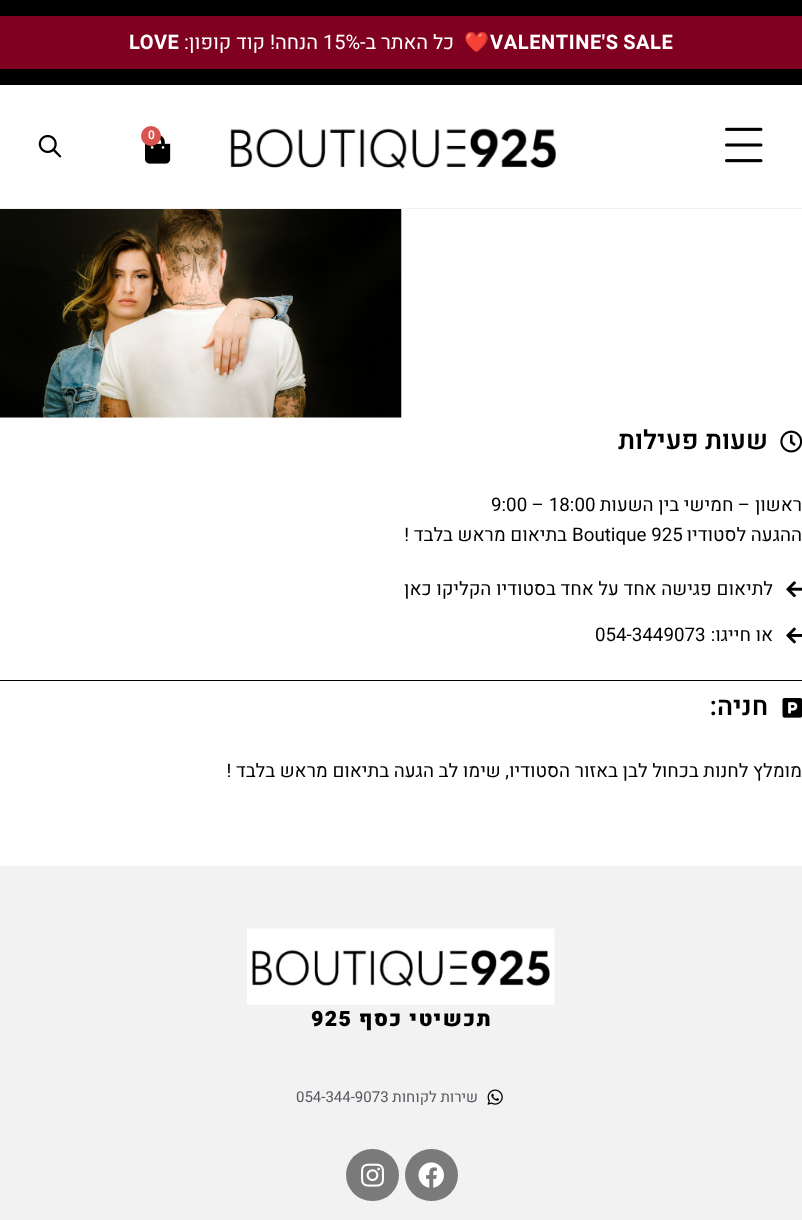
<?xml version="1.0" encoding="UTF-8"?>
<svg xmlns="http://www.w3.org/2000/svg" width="802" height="1220">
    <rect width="100%" height="100%" fill="#FFFFFF"/>
    <rect x="0" y="208" width="802" height="1" fill="#F1F1F1"/>
    <rect x="0" y="0" width="802" height="85" fill="#000000"/>
    <rect x="0" y="16" width="802" height="53" fill="#800020"/>
    <text x="490" y="49" word-spacing="-1" font-family="Heebo" font-size="20" font-weight="700" letter-spacing="0.6" fill="#FFFFFF">VALENTINE'S SALE</text>
    <text x="464" y="49" font-family="Noto Color Emoji" font-size="20" font-weight="700" letter-spacing="0.6" fill="#FFFFFF">❤️</text>
    <text x="454" y="49" font-family="Heebo" font-size="20" direction="rtl" fill="#FFFFFF">כל האתר ב-</text>
    <text x="323" y="49" font-family="Heebo" font-size="20" fill="#FFFFFF">15%</text>
    <text x="318" y="49" font-family="Heebo" font-size="20" direction="rtl" fill="#FFFFFF">הנחה! קוד קופון:</text>
    <text x="129" y="49" font-family="Heebo" font-size="20" font-weight="700" letter-spacing="0.6" fill="#FFFFFF">LOVE</text>
    <image x="725" y="127" width="38" height="36" href="img_01.png"/>
    <image x="230" y="128" width="327" height="41" href="img_02.png"/>
    <image x="145" y="135" width="26" height="29" href="img_03.png"/>
    <circle cx="151" cy="136" r="10" fill="#D9534F"/>
    <text x="148" y="139" font-family="Heebo" font-size="12" font-weight="600" fill="#FFFFFF">0</text>
    <image x="38" y="135" width="24" height="23" href="img_04.png"/>
    <image x="0" y="209" width="402" height="209" href="img_05.png"/>
    <image x="780" y="430" width="22" height="23" href="img_06.png"/>
    <text x="768" y="449" font-family="Heebo" font-size="26.25" font-weight="600" direction="rtl" fill="#000000">שעות פעילות</text>
    <text x="802" y="511" font-family="Heebo" font-size="18.75" direction="rtl" fill="#000000">ראשון – חמישי בין השעות</text>
    <text x="491" y="511" font-family="Heebo" font-size="18.75" fill="#000000">9:00 – 18:00</text>
    <text x="802" y="541" font-family="Heebo" font-size="18.75" direction="rtl" fill="#000000">ההגעה לסטודיו</text>
    <text x="572" y="541" font-family="Heebo" font-size="18.75" fill="#000000">Boutique 925</text>
    <text x="567" y="541" font-family="Heebo" font-size="18.75" direction="rtl" fill="#000000">בתיאום מראש בלבד !</text>
    <image x="786" y="581" width="16" height="17" href="img_07.png"/>
    <text x="773" y="595" font-family="Heebo" font-size="18.75" direction="rtl" fill="#000000">לתיאום פגישה אחד על אחד בסטודיו הקליקו כאן</text>
    <image x="786" y="627" width="16" height="17" href="img_08.png"/>
    <text x="773" y="641" font-family="Heebo" font-size="18.75" direction="rtl" fill="#000000">או חייגו:</text>
    <text x="595" y="641" font-family="Heebo" font-size="18.75" fill="#000000">054-3449073</text>
    <rect x="0" y="680" width="802" height="1" fill="#000000"/>
    <image x="782" y="698" width="20" height="20" href="img_09.png"/>
    <text x="768" y="715" font-family="Heebo" font-size="26.25" font-weight="600" direction="rtl" fill="#000000">חניה:</text>
    <text x="802" y="777" font-family="Heebo" font-size="18.75" direction="rtl" fill="#000000">מומלץ לחנות בכחול לבן באזור הסטודיו, שימו לב הגעה בתיאום מראש בלבד !</text>
    <rect x="0" y="866" width="802" height="354" fill="#F2F2F2"/>
    <image x="247" y="928" width="308" height="77" href="img_10.png"/>
    <text x="492" y="1026" font-family="Heebo" font-size="21.25" font-weight="900" letter-spacing="1.4" direction="rtl" fill="#000000">תכשיטי כסף</text>
    <text x="311" y="1026" font-family="Heebo" font-size="21.25" font-weight="900" letter-spacing="1.4" fill="#000000">925</text>
    <image x="487" y="1089" width="16" height="16" href="img_11.png"/>
    <text x="478" y="1102" font-family="Heebo" font-size="15" direction="rtl" fill="#54595F">שירות לקוחות</text>
    <text x="296" y="1102" font-family="Heebo" font-size="15" fill="#54595F">054-344-9073</text>
    <rect x="405" y="1149" width="53" height="52" rx="26" fill="#7A7A7A"/>
    <image x="418" y="1162" width="26" height="26" href="img_12.png"/>
    <rect x="346" y="1149" width="53" height="52" rx="26" fill="#7A7A7A"/>
    <image x="361" y="1163" width="23" height="24" href="img_13.png"/>
</svg>
